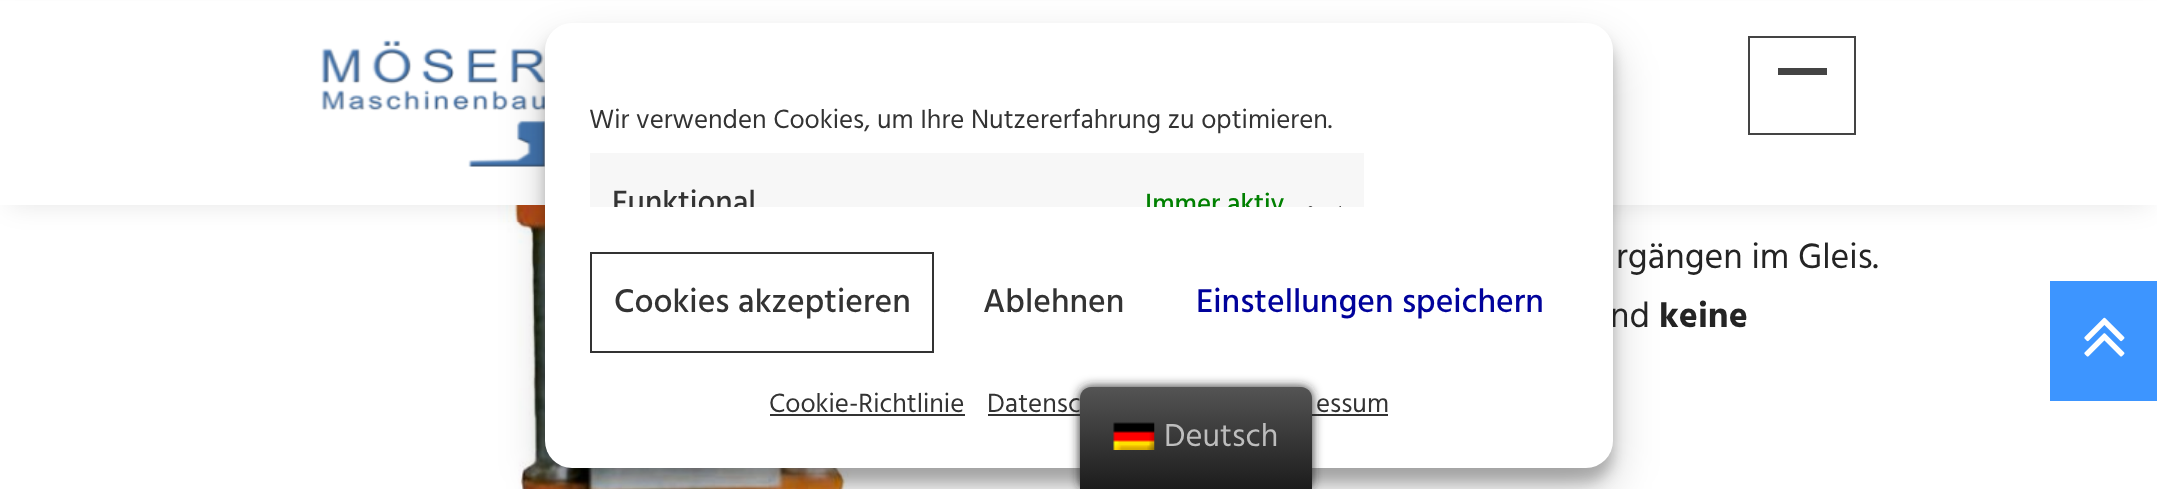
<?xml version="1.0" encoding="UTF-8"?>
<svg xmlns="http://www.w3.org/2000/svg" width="2157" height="489">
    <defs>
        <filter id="blur1" x="-50%" y="-200%" width="200%" height="500%"><feGaussianBlur stdDeviation="13.5"/></filter>
        <filter id="blur2" x="-50%" y="-200%" width="200%" height="500%"><feGaussianBlur stdDeviation="7"/></filter>
        <filter id="blur3" x="-50%" y="-200%" width="200%" height="500%"><feGaussianBlur stdDeviation="22.5"/></filter>
        <clipPath id="clip1"><rect x="590" y="101" width="978" height="106"/></clipPath>
        <filter id="blur4" x="-50%" y="-200%" width="200%" height="500%"><feGaussianBlur stdDeviation="5.5"/></filter>
        <linearGradient id="g1" gradientUnits="userSpaceOnUse" x1="1196" y1="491" x2="1196" y2="387"><stop offset="0" stop-color="#1B1B1B"/><stop offset="1" stop-color="#545454"/></linearGradient>
    </defs>
    <rect width="100%" height="100%" fill="#FFFFFF"/>
    <image x="456" y="205" width="415" height="284" href="img_03.png"/>
    <rect x="9" y="18" width="2140" height="187" fill="#000000" fill-opacity="0.1" filter="url(#blur1)"/>
    <rect x="0" y="1" width="2157" height="204" fill="#FFFFFF"/>
    <image x="321" y="39" width="224" height="128" href="img_01.png"/>
    <rect x="1749" y="37" width="106" height="97" fill="none" stroke="#444444" stroke-width="2"/>
    <rect x="1778" y="68" width="49" height="7" fill="#444444"/>
    <rect x="545" y="36" width="1068" height="446" rx="27" fill="#000000" fill-opacity="0.23" filter="url(#blur2)"/>
    <rect x="545" y="45" width="1068" height="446" rx="27" fill="#000000" fill-opacity="0.19" filter="url(#blur3)"/>
    <text x="1610" y="327" font-family="Hind" font-size="36" fill="#242424">nd</text>
    <rect x="545" y="23" width="1068" height="445" rx="27" fill="#FFFFFF"/>
    <text x="589" y="128" font-family="Hind" font-size="27" fill="#333333">Wir verwenden Cookies, um Ihre Nutzererfahrung zu optimieren.</text>
    <rect x="590" y="153" width="774" height="54" fill="#F7F7F7"/>
    <g clip-path="url(#clip1)">
        <text x="612" y="212" font-family="Hind" font-size="31.5" font-weight="500" fill="#333333">Funktional</text>
        <text x="1145" y="212" font-family="Hind" font-size="27" font-weight="500" fill="#008000">Immer aktiv</text>
    </g>
    <image x="1308" y="206" width="33" height="1" href="img_02.png"/>
    <rect x="591" y="253" width="342" height="99" fill="none" stroke="#333333" stroke-width="2"/>
    <text x="614" y="312" font-family="Hind" font-size="33.75" font-weight="500" fill="#333333">Cookies akzeptieren</text>
    <text x="983" y="312" font-family="Hind" font-size="33.75" font-weight="500" fill="#333333">Ablehnen</text>
    <text x="1196" y="312" font-family="Hind" font-size="33.75" font-weight="500" fill="#00029B">Einstellungen speichern</text>
    <text x="769" y="412" font-family="Hind" font-size="27" fill="#333333">Cookie-Richtlinie</text>
    <rect x="770" y="414" width="195" height="2" fill="#333333"/>
    <text x="987" y="412" font-family="Hind" font-size="27" fill="#333333">Datensc</text>
    <rect x="988" y="414" width="92" height="2" fill="#333333"/>
    <text x="1316" y="412" font-family="Hind" font-size="27" fill="#333333">essum</text>
    <rect x="1312" y="414" width="76" height="2" fill="#333333"/>
    <text x="1616" y="268" font-family="Hind" font-size="36" fill="#242424">rgängen im Gleis.</text>
    <text x="1659" y="327" font-family="Hind" font-size="36" font-weight="700" fill="#242424">keine</text>
    <rect x="2050" y="281" width="107" height="120" fill="#3D95FF"/>
    <image x="2084" y="317" width="41" height="40" href="img_04.png"/>
    <rect x="1080" y="387" width="232" height="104" rx="11" fill="#212121" filter="url(#blur4)"/>
    <path d="M 1091 387 H 1301 C 1307 387 1312 392 1312 398 V 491 H 1080 V 398 C 1080 392 1085 387 1091 387 Z" fill="url(#g1)"/>
    <image x="1113" y="422" width="42" height="28" href="img_05.png"/>
    <text x="1164" y="446" font-family="Hind" font-size="32.5" fill="#BDBDBD">Deutsch</text>
</svg>
